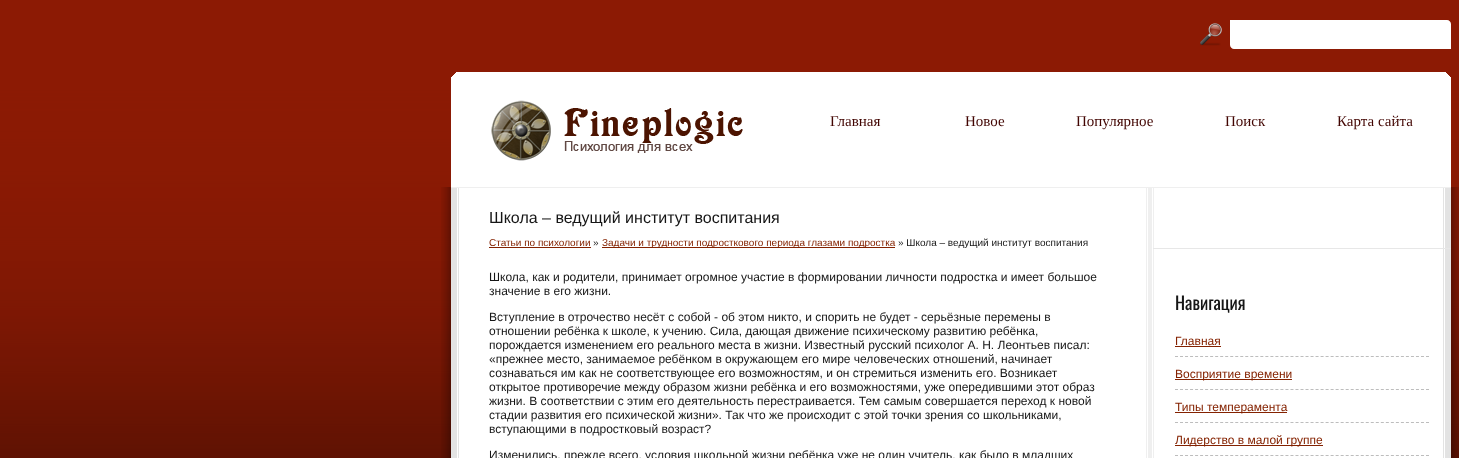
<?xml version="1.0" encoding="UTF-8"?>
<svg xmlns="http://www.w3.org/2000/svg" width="1459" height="458">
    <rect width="100%" height="100%" fill="#FFFFFF"/>
    <image x="0" y="0" width="1459" height="458" href="img_01.png"/>
    <image x="451" y="72" width="1000" height="6" href="img_02.png"/>
    <image x="1200" y="23" width="22" height="23" href="img_03.png"/>
    <path d="M 1230 20 H 1447 C 1449 20 1451 22 1451 24 V 49 H 1234 C 1232 49 1230 47 1230 45 Z" fill="#FFFFFF"/>
    <rect x="451" y="78" width="1000" height="109" fill="#FFFFFF"/>
    <image x="491" y="100" width="252" height="61" href="img_04.png"/>
    <text x="830" y="126" font-family="Liberation Serif" font-size="15" fill="#420502">Главная</text>
    <text x="965" y="126" font-family="Liberation Serif" font-size="15" fill="#420502">Новое</text>
    <text x="1076" y="126" font-family="Liberation Serif" font-size="15" fill="#420502">Популярное</text>
    <text x="1225" y="126" font-family="Liberation Serif" font-size="15" fill="#420502">Поиск</text>
    <text x="1337" y="126" font-family="Liberation Serif" font-size="15" fill="#420502">Карта сайта</text>
    <image x="441" y="187" width="1018" height="271" href="img_05.png"/>
    <rect x="451" y="187" width="1000" height="1" fill="#EFEFEF"/>
    <text x="489" y="223" font-family="Liberation Sans" font-size="16" fill="#161616">Школа – ведущий институт воспитания</text>
    <text x="489" y="246" font-family="Liberation Sans" font-size="10" fill="#842201">Статьи по психологии</text>
    <rect x="489" y="247" width="102" height="1" fill="#842201"/>
    <text x="593" y="246" font-family="Liberation Sans" font-size="10" fill="#161616">»</text>
    <rect x="602" y="247" width="293" height="1" fill="#842201"/>
    <text x="602" y="246" font-family="Liberation Sans" font-size="10" fill="#842201">Задачи и трудности подросткового периода глазами подростка</text>
    <text x="898" y="246" font-family="Liberation Sans" font-size="10" fill="#161616">» Школа – ведущий институт воспитания</text>
    <text font-family="Liberation Sans" font-size="12" fill="#161616">
        <tspan x="489" y="281">Школа, как и родители, принимает огромное участие в формировании личности подростка и имеет большое</tspan>
        <tspan x="489" y="295">значение в его жизни.</tspan>
    </text>
    <text font-family="Liberation Sans" font-size="12" fill="#161616">
        <tspan x="489" y="321">Вступление в отрочество несёт с собой - об этом никто, и спорить не будет - серьёзные перемены в</tspan>
        <tspan x="489" y="335">отношении ребёнка к школе, к учению. Сила, дающая движение психическому развитию ребёнка,</tspan>
        <tspan x="489" y="349">порождается изменением его реального места в жизни. Известный русский психолог А. Н. Леонтьев писал:</tspan>
        <tspan x="489" y="363">«прежнее место, занимаемое ребёнком в окружающем его мире человеческих отношений, начинает</tspan>
        <tspan x="489" y="377">сознаваться им как не соответствующее его возможностям, и он стремиться изменить его. Возникает</tspan>
        <tspan x="489" y="391">открытое противоречие между образом жизни ребёнка и его возможностями, уже опередившими этот образ</tspan>
        <tspan x="489" y="405">жизни. В соответствии с этим его деятельность перестраивается. Тем самым совершается переход к новой</tspan>
        <tspan x="489" y="419">стадии развития его психической жизни». Так что же происходит с этой точки зрения со школьниками,</tspan>
        <tspan x="489" y="433">вступающими в подростковый возраст?</tspan>
    </text>
    <text x="489" y="459" font-family="Liberation Sans" font-size="12" fill="#161616">Изменились, прежде всего, условия школьной жизни ребёнка уже не один учитель, как было в младших</text>
    <rect x="1153" y="248" width="298" height="1" fill="#E7E7E7"/>
    <text x="1175" y="310" font-family="Oswald" font-size="18" fill="#161616">Навигация</text>
    <text x="1175" y="345" font-family="Liberation Sans" font-size="12" fill="#842201">Главная</text>
    <rect x="1175" y="346" width="46" height="1" fill="#842201"/>
    <path d="M 1175 356.5 H 1429" fill="none" stroke="#BDBDBD" stroke-dasharray="3 2.02"/>
    <rect x="1175" y="379" width="117" height="1" fill="#842201"/>
    <text x="1175" y="378" font-family="Liberation Sans" font-size="12" fill="#842201">Восприятие времени</text>
    <path d="M 1175 389.5 H 1429" fill="none" stroke="#BDBDBD" stroke-dasharray="3 2.02"/>
    <rect x="1175" y="412" width="112" height="1" fill="#842201"/>
    <text x="1175" y="411" font-family="Liberation Sans" font-size="12" fill="#842201">Типы темперамента</text>
    <path d="M 1175 422.5 H 1429" fill="none" stroke="#BDBDBD" stroke-dasharray="3 2.02"/>
    <rect x="1175" y="445" width="148" height="1" fill="#842201"/>
    <text x="1175" y="444" font-family="Liberation Sans" font-size="12" fill="#842201">Лидерство в малой группе</text>
    <path d="M 1175 455.5 H 1429" fill="none" stroke="#BDBDBD" stroke-dasharray="3 2.02"/>
</svg>
